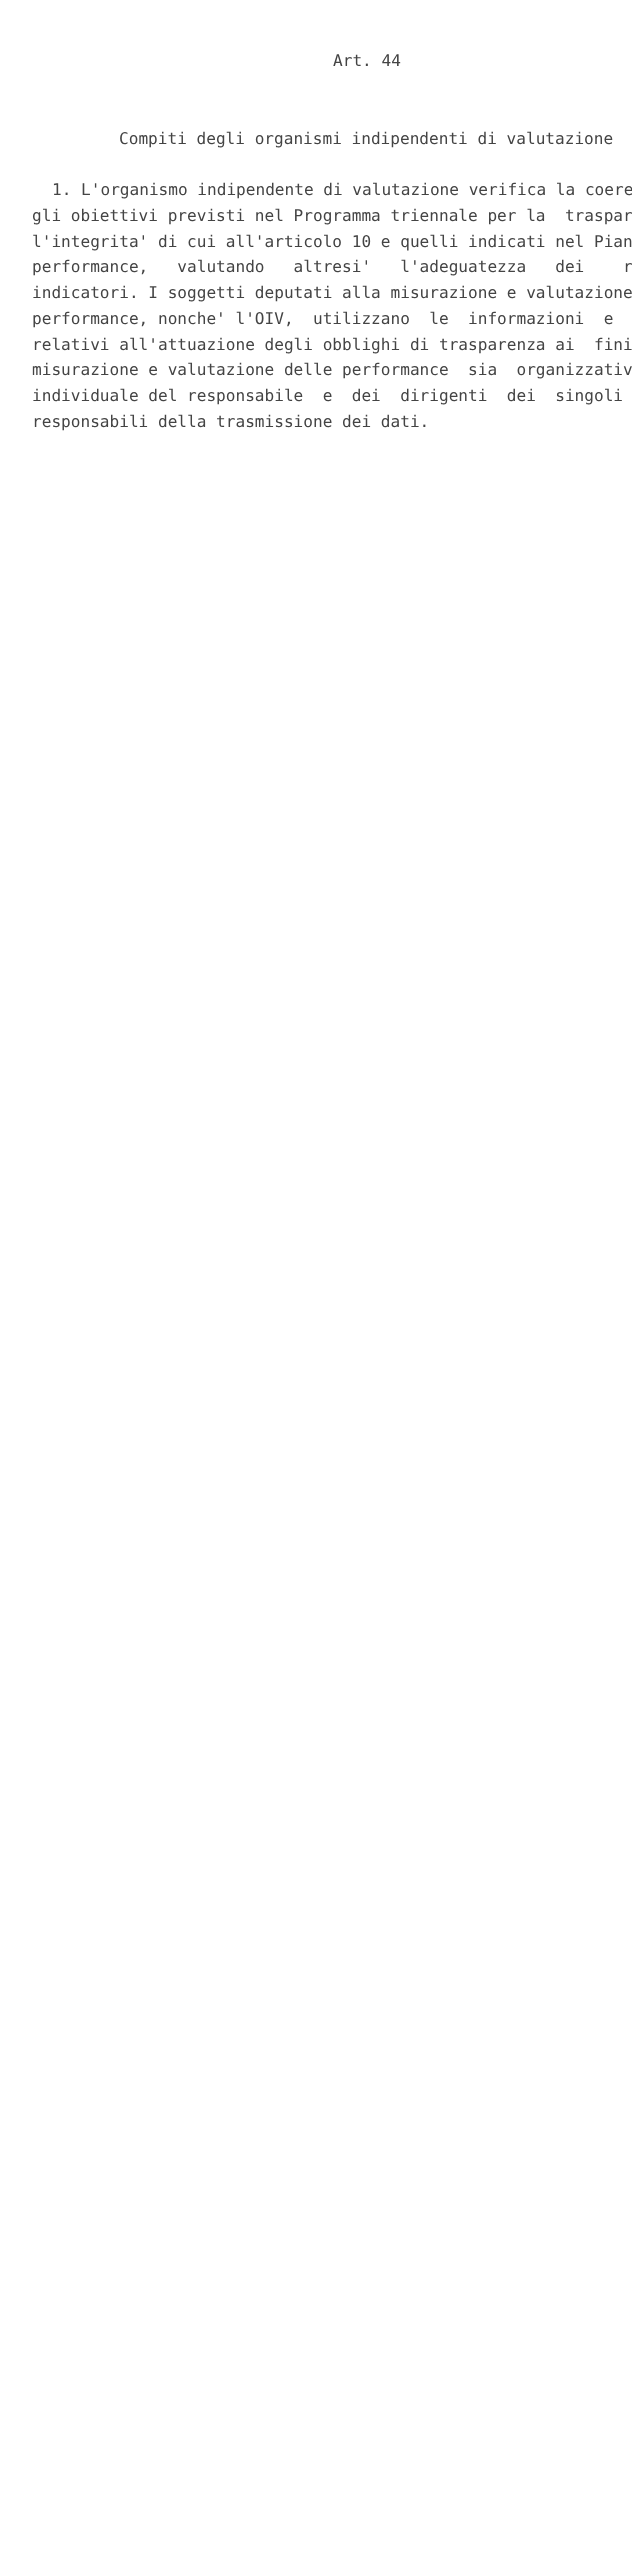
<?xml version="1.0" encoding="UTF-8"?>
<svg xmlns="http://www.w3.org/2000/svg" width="632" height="2559">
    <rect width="100%" height="100%" fill="#FFFFFF"/>
    <text x="333" y="66" font-family="DejaVu Sans Mono" font-size="16.1" fill="#444444">Art. 44</text>
    <text x="119" y="144" font-family="DejaVu Sans Mono" font-size="16.1" fill="#444444">Compiti degli organismi indipendenti di valutazione</text>
    <text x="52" y="195" font-family="DejaVu Sans Mono" font-size="16.1" fill="#444444">1. L'organismo indipendente di valutazione verifica la coere</text>
    <text font-family="DejaVu Sans Mono" font-size="16.1" fill="#444444" xml:space="preserve"><tspan x="32" y="221">gli obiettivi previsti nel Programma triennale per la  traspar</tspan><tspan x="32" y="247">l'integrita' di cui all'articolo 10 e quelli indicati nel Pian</tspan><tspan x="32" y="272">performance,   valutando   altresi'   l'adeguatezza   dei    r</tspan><tspan x="32" y="298">indicatori. I soggetti deputati alla misurazione e valutazione</tspan><tspan x="32" y="324">performance, nonche' l'OIV,  utilizzano  le  informazioni  e</tspan><tspan x="32" y="350">relativi all'attuazione degli obblighi di trasparenza ai  fini</tspan><tspan x="32" y="375">misurazione e valutazione delle performance  sia  organizzativ</tspan><tspan x="32" y="401">individuale del responsabile  e  dei  dirigenti  dei  singoli</tspan><tspan x="32" y="427">responsabili della trasmissione dei dati.</tspan></text>
</svg>
